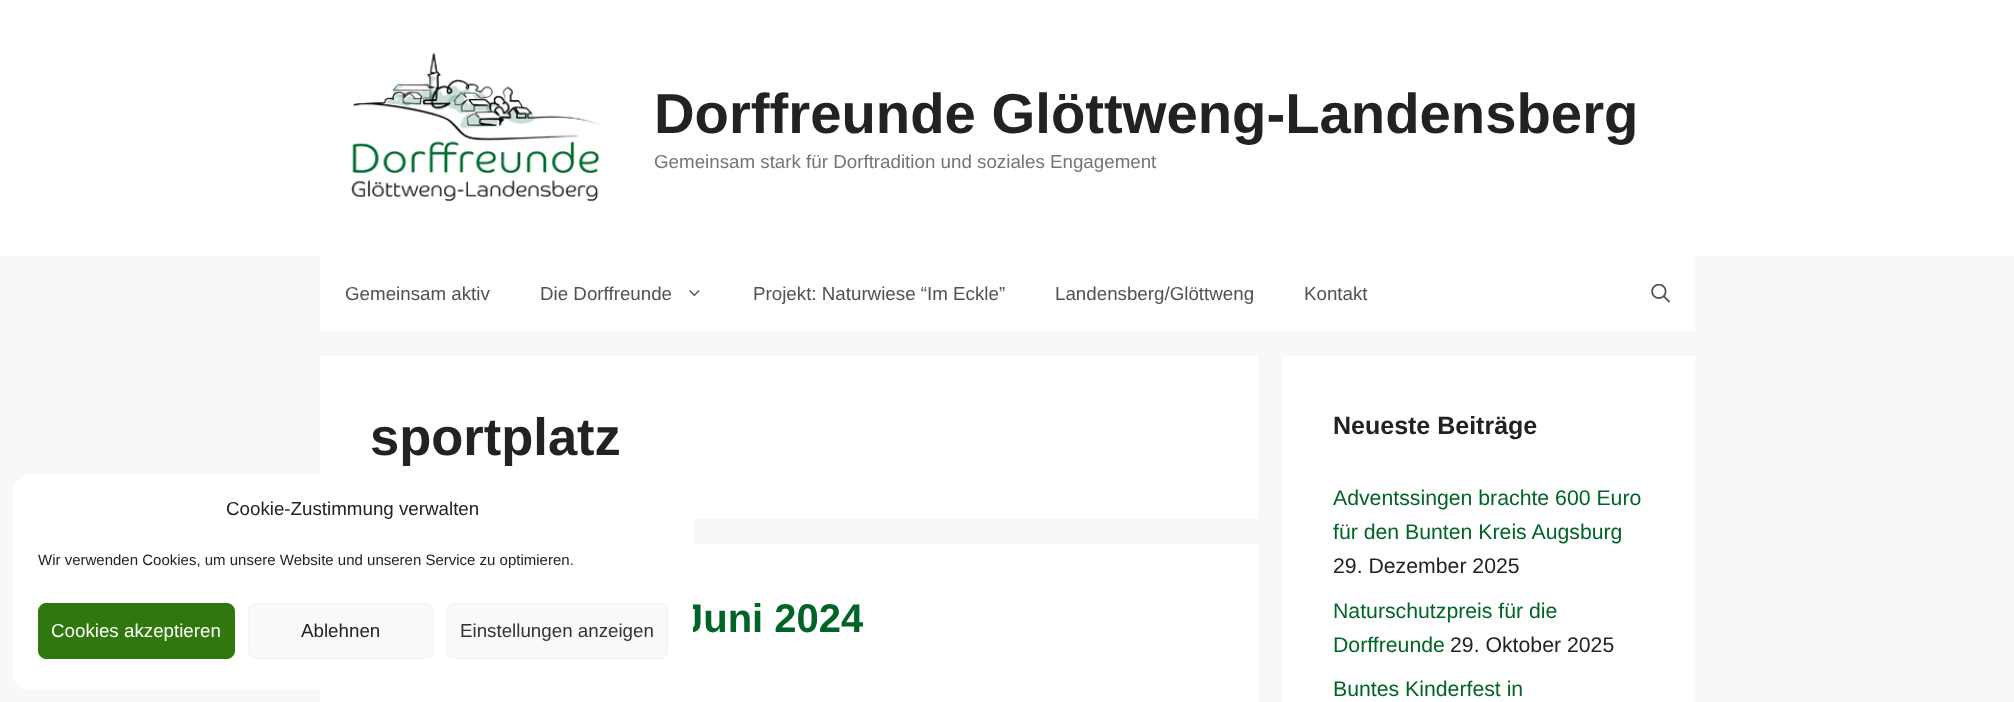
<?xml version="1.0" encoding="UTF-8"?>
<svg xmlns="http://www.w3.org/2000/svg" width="2014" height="702">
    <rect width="100%" height="100%" fill="#F7F8F9"/>
    <rect x="0" y="0" width="2014" height="256" fill="#FFFFFF"/>
    <image x="351" y="53" width="249" height="149" href="img_01.png"/>
    <text x="654" y="133" font-family="Liberation Sans" font-size="56.25" font-weight="700" fill="#222222">Dorffreunde Glöttweng-Landensberg</text>
    <text x="654" y="168" font-family="Liberation Sans" font-size="18.75" fill="#757575">Gemeinsam stark für Dorftradition und soziales Engagement</text>
    <rect x="320" y="256" width="1375" height="75" fill="#FFFFFF"/>
    <text x="345" y="300" font-family="Liberation Sans" font-size="18.75" fill="#515151">Gemeinsam aktiv</text>
    <text x="540" y="300" font-family="Liberation Sans" font-size="18.75" fill="#515151">Die Dorffreunde</text>
    <image x="689" y="290" width="11" height="7" href="img_02.png"/>
    <text x="753" y="300" font-family="Liberation Sans" font-size="18.75" fill="#515151">Projekt: Naturwiese “Im Eckle”</text>
    <text x="1055" y="300" font-family="Liberation Sans" font-size="18.75" fill="#515151">Landensberg/Glöttweng</text>
    <text x="1304" y="300" font-family="Liberation Sans" font-size="18.75" fill="#515151">Kontakt</text>
    <image x="1651" y="284" width="19" height="19" href="img_03.png"/>
    <rect x="320" y="356" width="938" height="163" fill="#FFFFFF"/>
    <rect x="320" y="544" width="938" height="158" fill="#FFFFFF"/>
    <text x="681" y="632" font-family="Liberation Sans" font-size="40" font-weight="700" fill="#006426">Juni 2024</text>
    <rect x="13" y="475" width="680" height="215" rx="15" fill="#FFFFFF"/>
    <text x="226" y="515" font-family="Liberation Sans" font-size="18.75" fill="#222222">Cookie-Zustimmung verwalten</text>
    <text x="38" y="565" font-family="Liberation Sans" font-size="15" fill="#222222">Wir verwenden Cookies, um unsere Website und unseren Service zu optimieren.</text>
    <rect x="38.5" y="603.5" width="196" height="55" rx="7.5" fill="#30770D" stroke="#30770D"/>
    <text x="51" y="637" font-family="Liberation Sans" font-size="18.75" fill="#FFFFFF">Cookies akzeptieren</text>
    <rect x="248.5" y="603.5" width="185" height="55" rx="7.5" fill="#F9F9F9" stroke="#F2F2F2"/>
    <text x="301" y="637" font-family="Liberation Sans" font-size="18.75" fill="#222222">Ablehnen</text>
    <rect x="446.5" y="603.5" width="221" height="55" rx="7.5" fill="#F9F9F9" stroke="#F2F2F2"/>
    <text x="460" y="637" font-family="Liberation Sans" font-size="18.75" fill="#333333">Einstellungen anzeigen</text>
    <text x="370" y="455" font-family="Liberation Sans" font-size="52.5" font-weight="700" fill="#222222">sportplatz</text>
    <rect x="1283" y="356" width="412" height="346" fill="#FFFFFF"/>
    <text x="1333" y="434" font-family="Liberation Sans" font-size="25" font-weight="700" fill="#222222">Neueste Beiträge</text>
    <text font-family="Liberation Sans" font-size="21.25" fill="#006426">
        <tspan x="1333" y="505">Adventssingen brachte 600 Euro</tspan>
        <tspan x="1333" y="539">für den Bunten Kreis Augsburg</tspan>
    </text>
    <text x="1333" y="573" font-family="Liberation Sans" font-size="21.25" fill="#222222">29. Dezember 2025</text>
    <text font-family="Liberation Sans" font-size="21.25" fill="#006426">
        <tspan x="1333" y="618">Naturschutzpreis für die</tspan>
        <tspan x="1333" y="652">Dorffreunde</tspan>
    </text>
    <text x="1450" y="652" font-family="Liberation Sans" font-size="21.25" fill="#222222">29. Oktober 2025</text>
    <text x="1333" y="696" font-family="Liberation Sans" font-size="21.25" fill="#006426">Buntes Kinderfest in</text>
</svg>
